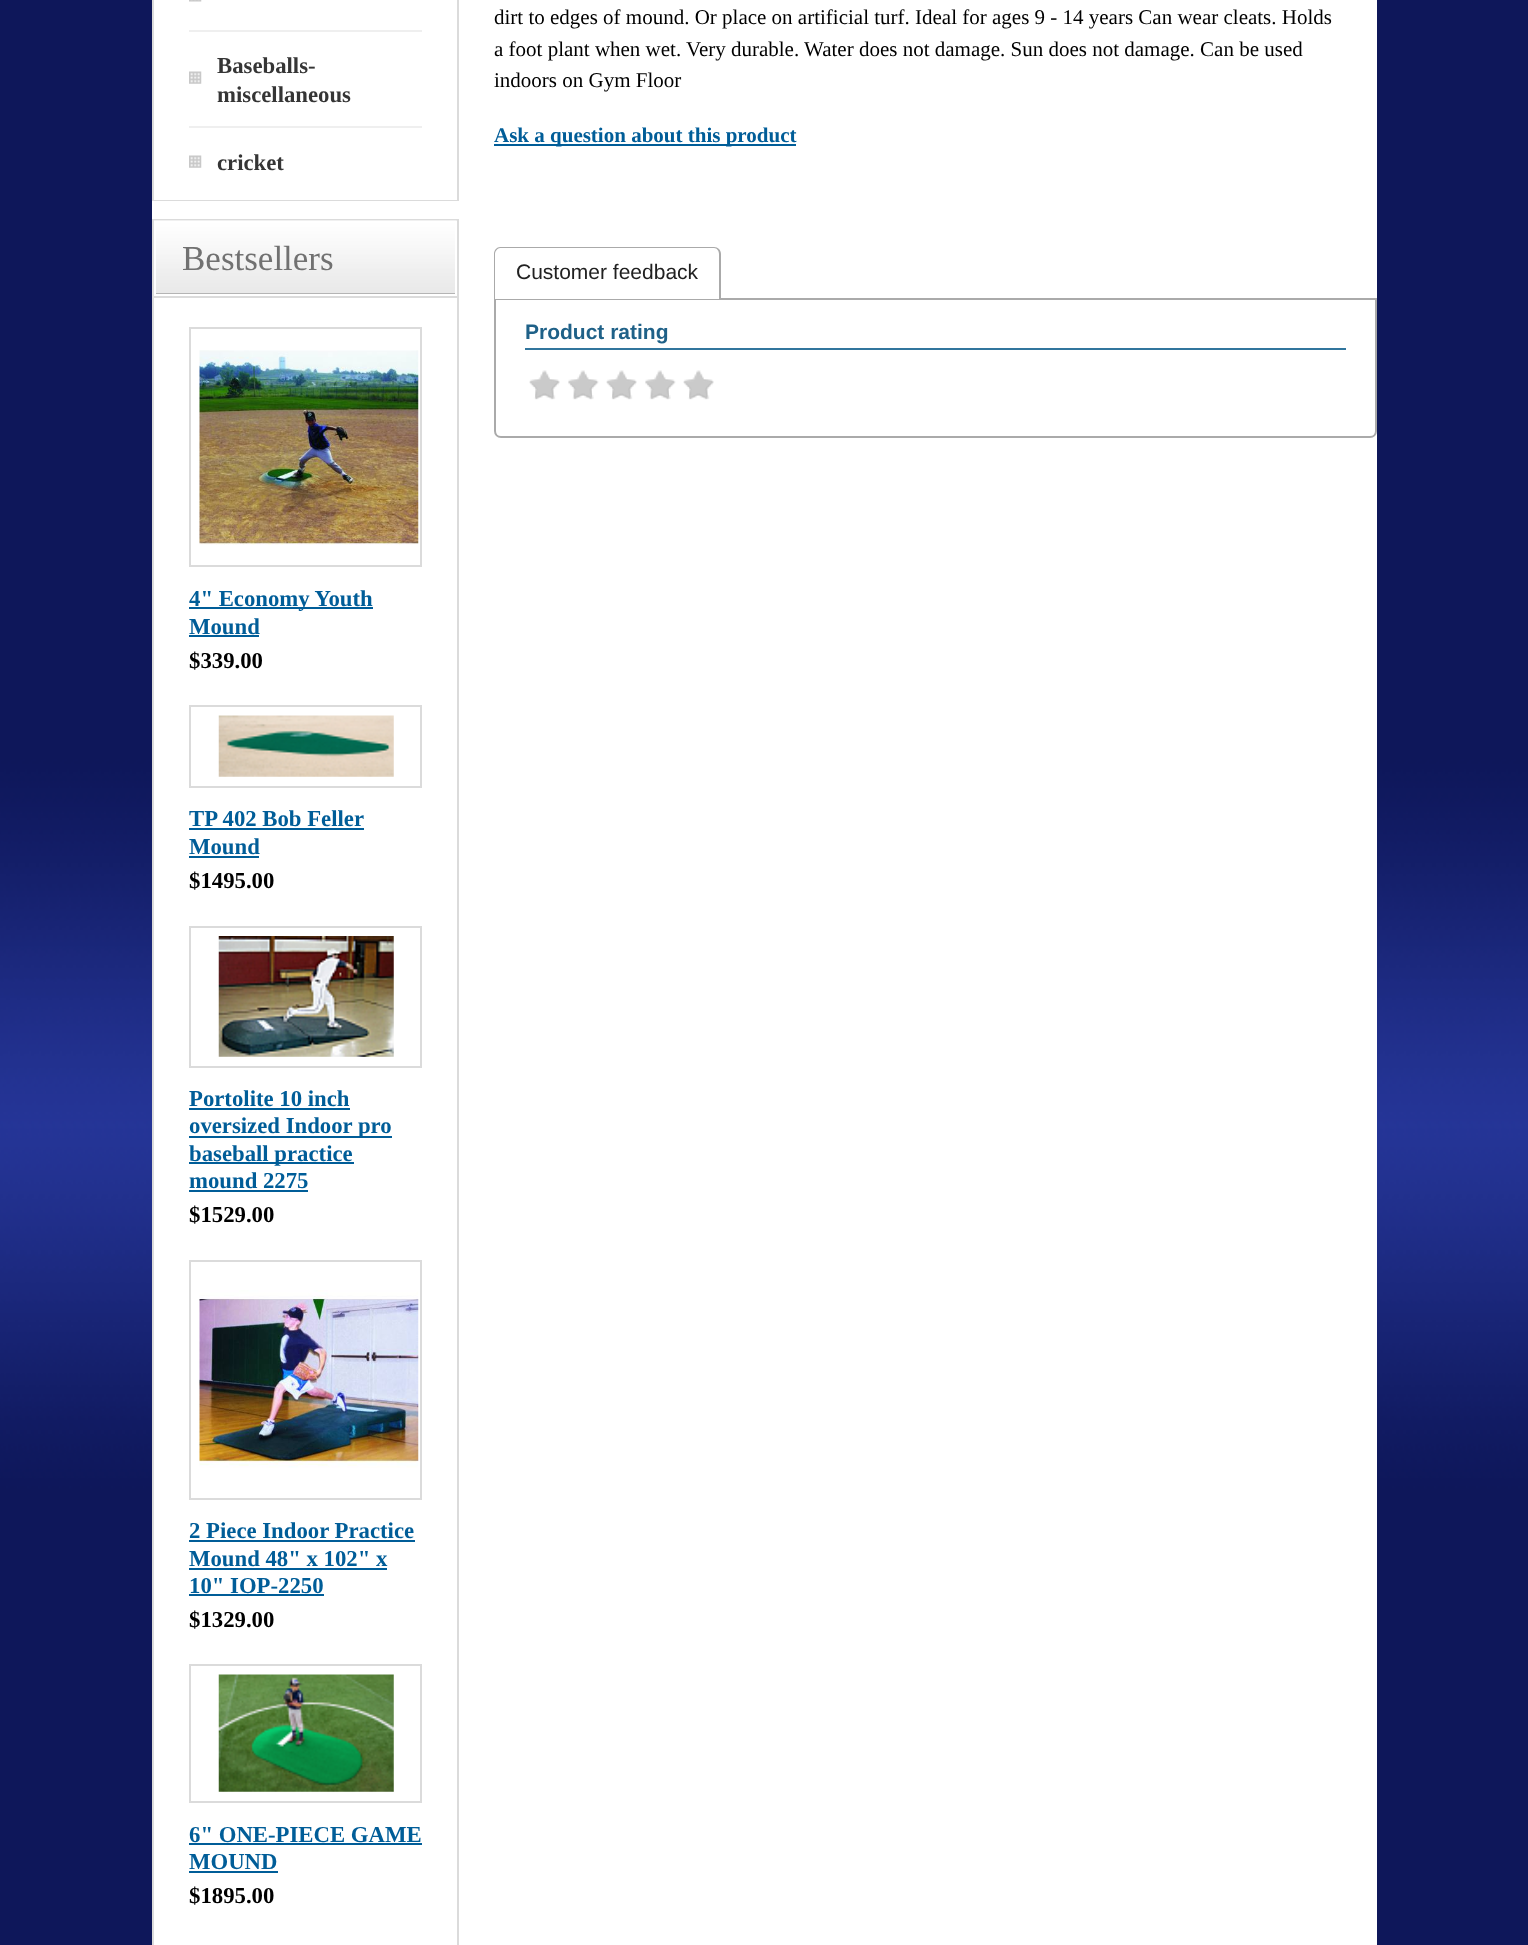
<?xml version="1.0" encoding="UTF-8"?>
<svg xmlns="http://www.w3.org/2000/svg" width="1528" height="1945">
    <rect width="100%" height="100%" fill="#FFFFFF"/>
    <image x="0" y="459" width="1528" height="1486" href="img_01.png"/>
    <rect x="0" y="0" width="1528" height="459" fill="#0E175A"/>
    <rect x="152" y="0" width="1225" height="1945" fill="#FFFFFF"/>
    <rect x="153" y="-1" width="305" height="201" fill="none" stroke="#DBDBDB" stroke-width="2"/>
    <rect x="154" y="199" width="303" height="1" fill="#FFFFFF"/>
    <image x="189" y="0" width="13" height="2" href="img_02.png"/>
    <rect x="189" y="30" width="233" height="2" fill="#EFEFEF"/>
    <image x="189" y="71" width="13" height="13" href="img_03.png"/>
    <rect x="189" y="126" width="233" height="2" fill="#EFEFEF"/>
    <text font-family="Liberation Serif" font-size="22.75" font-weight="700" fill="#353535">
        <tspan x="217" y="73">Baseballs-</tspan>
        <tspan x="217" y="102">miscellaneous</tspan>
    </text>
    <image x="189" y="155" width="13" height="13" href="img_03.png"/>
    <text x="217" y="170" font-family="Liberation Serif" font-size="22.75" font-weight="700" fill="#353535">cricket</text>
    <rect x="153" y="220" width="305" height="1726" fill="none" stroke="#DBDBDB" stroke-width="2"/>
    <image x="154" y="220" width="303" height="74" href="img_04.png"/>
    <rect x="155" y="222" width="301" height="73" fill="none" stroke="#FFFFFF" stroke-width="2"/>
    <text x="182" y="270" font-family="Liberation Serif" font-size="35" fill="#717171">Bestsellers</text>
    <rect x="154" y="296" width="303" height="2" fill="#DBDBDB"/>
    <rect x="190" y="328" width="231" height="238" fill="none" stroke="#DBDBDB" stroke-width="2"/>
    <image x="199" y="350" width="220" height="195" href="img_05.png"/>
    <rect x="189" y="607" width="184" height="2" fill="#005D98"/>
    <text font-family="Liberation Serif" font-size="22.75" font-weight="700" fill="#005D98">
        <tspan x="189" y="606">4" Economy Youth</tspan>
        <tspan x="189" y="634">Mound</tspan>
    </text>
    <rect x="189" y="635" width="70" height="2" fill="#005D98"/>
    <text x="189" y="668" font-family="Liberation Serif" font-size="22.75" font-weight="700" fill="#000000">$339.00</text>
    <rect x="190" y="706" width="231" height="81" fill="none" stroke="#DBDBDB" stroke-width="2"/>
    <image x="218" y="715" width="176" height="62" href="img_06.png"/>
    <text x="189" y="826" font-family="Liberation Serif" font-size="22.75" font-weight="700" fill="#005D98">TP 402 Bob Feller</text>
    <rect x="189" y="828" width="175" height="2" fill="#005D98"/>
    <text x="189" y="854" font-family="Liberation Serif" font-size="22.75" font-weight="700" fill="#005D98">Mound</text>
    <rect x="189" y="856" width="70" height="2" fill="#005D98"/>
    <text x="189" y="888" font-family="Liberation Serif" font-size="22.75" font-weight="700" fill="#000000">$1495.00</text>
    <rect x="190" y="927" width="231" height="140" fill="none" stroke="#DBDBDB" stroke-width="2"/>
    <image x="218" y="936" width="176" height="121" href="img_07.png"/>
    <text x="189" y="1106" font-family="Liberation Serif" font-size="22.75" font-weight="700" fill="#005D98">Portolite 10 inch</text>
    <rect x="189" y="1108" width="161" height="2" fill="#005D98"/>
    <rect x="189" y="1136" width="203" height="2" fill="#005D98"/>
    <text x="189" y="1133" font-family="Liberation Serif" font-size="22.75" font-weight="700" fill="#005D98">oversized Indoor pro</text>
    <rect x="189" y="1162" width="165" height="2" fill="#005D98"/>
    <text font-family="Liberation Serif" font-size="22.75" font-weight="700" fill="#005D98">
        <tspan x="189" y="1161">baseball practice</tspan>
        <tspan x="189" y="1188">mound 2275</tspan>
    </text>
    <rect x="189" y="1190" width="119" height="2" fill="#005D98"/>
    <text x="189" y="1222" font-family="Liberation Serif" font-size="22.75" font-weight="700" fill="#000000">$1529.00</text>
    <rect x="190" y="1261" width="231" height="238" fill="none" stroke="#DBDBDB" stroke-width="2"/>
    <image x="199" y="1290" width="220" height="178" href="img_08.png"/>
    <text x="189" y="1538" font-family="Liberation Serif" font-size="22.75" font-weight="700" fill="#005D98">2 Piece Indoor Practice</text>
    <rect x="189" y="1540" width="226" height="2" fill="#005D98"/>
    <text x="189" y="1566" font-family="Liberation Serif" font-size="22.75" font-weight="700" fill="#005D98">Mound 48" x 102" x</text>
    <rect x="189" y="1568" width="198" height="2" fill="#005D98"/>
    <text x="189" y="1593" font-family="Liberation Serif" font-size="22.75" font-weight="700" fill="#005D98">10" IOP-2250</text>
    <rect x="189" y="1594" width="135" height="2" fill="#005D98"/>
    <text x="189" y="1627" font-family="Liberation Serif" font-size="22.75" font-weight="700" fill="#000000">$1329.00</text>
    <rect x="190" y="1665" width="231" height="137" fill="none" stroke="#DBDBDB" stroke-width="2"/>
    <image x="218" y="1674" width="176" height="118" href="img_09.png"/>
    <text x="189" y="1842" font-family="Liberation Serif" font-size="22.75" font-weight="700" fill="#005D98">6" ONE-PIECE GAME</text>
    <rect x="189" y="1843" width="233" height="2" fill="#005D98"/>
    <text x="189" y="1869" font-family="Liberation Serif" font-size="22.75" font-weight="700" fill="#005D98">MOUND</text>
    <rect x="189" y="1871" width="89" height="2" fill="#005D98"/>
    <text x="189" y="1903" font-family="Liberation Serif" font-size="22.75" font-weight="700" fill="#000000">$1895.00</text>
    <text font-family="Liberation Serif" font-size="21" fill="#000000">
        <tspan x="494" y="24">dirt to edges of mound. Or place on artificial turf. Ideal for ages 9 - 14 years Can wear cleats. Holds</tspan>
        <tspan x="494" y="56">a foot plant when wet. Very durable. Water does not damage. Sun does not damage. Can be used</tspan>
        <tspan x="494" y="87">indoors on Gym Floor</tspan>
    </text>
    <rect x="494" y="144" width="302" height="2" fill="#005D98"/>
    <text x="494" y="142" font-family="Liberation Serif" font-size="21" font-weight="700" fill="#005D98">Ask a question about this product</text>
    <path d="M 495 299 H 1376 V 431 C 1376 434.5 1373.5 437 1370 437 H 501 C 497.5 437 495 434.5 495 431 Z" fill="none" stroke="#AAAAAA" stroke-width="2"/>
    <path d="M 500 249 H 714 C 717 249 719 251 719 254 V 299 H 495 V 254 C 495 251 497 249 500 249 Z" fill="#FFFFFF"/>
    <rect x="494" y="298" width="227" height="1" fill="#FFFFFF"/>
    <path d="M 500 247 H 714 C 718 247 721 250 721 254 V 299 H 494 V 254 C 494 250 497 247 500 247 Z M 500 248 H 714 C 717 248 719 251 719 254 V 299 H 495 V 254 C 495 251 498 248 500 248 Z" fill="#AAAAAA" fill-rule="evenodd"/>
    <text x="516" y="279" font-family="Liberation Sans" font-size="21" fill="#212121">Customer feedback</text>
    <rect x="525" y="348" width="821" height="2" fill="#31759D"/>
    <text x="525" y="339" font-family="Liberation Sans" font-size="21" font-weight="700" fill="#1F6188">Product rating</text>
    <image x="529" y="370" width="31" height="30" href="img_10.png"/>
    <image x="529" y="370" width="31" height="29" href="img_11.png"/>
    <image x="568" y="370" width="31" height="30" href="img_12.png"/>
    <image x="568" y="370" width="30" height="29" href="img_13.png"/>
    <image x="606" y="370" width="31" height="30" href="img_10.png"/>
    <image x="606" y="370" width="31" height="29" href="img_11.png"/>
    <image x="645" y="370" width="31" height="30" href="img_12.png"/>
    <image x="645" y="370" width="30" height="29" href="img_13.png"/>
    <image x="683" y="370" width="31" height="30" href="img_10.png"/>
    <image x="683" y="370" width="31" height="29" href="img_11.png"/>
</svg>
